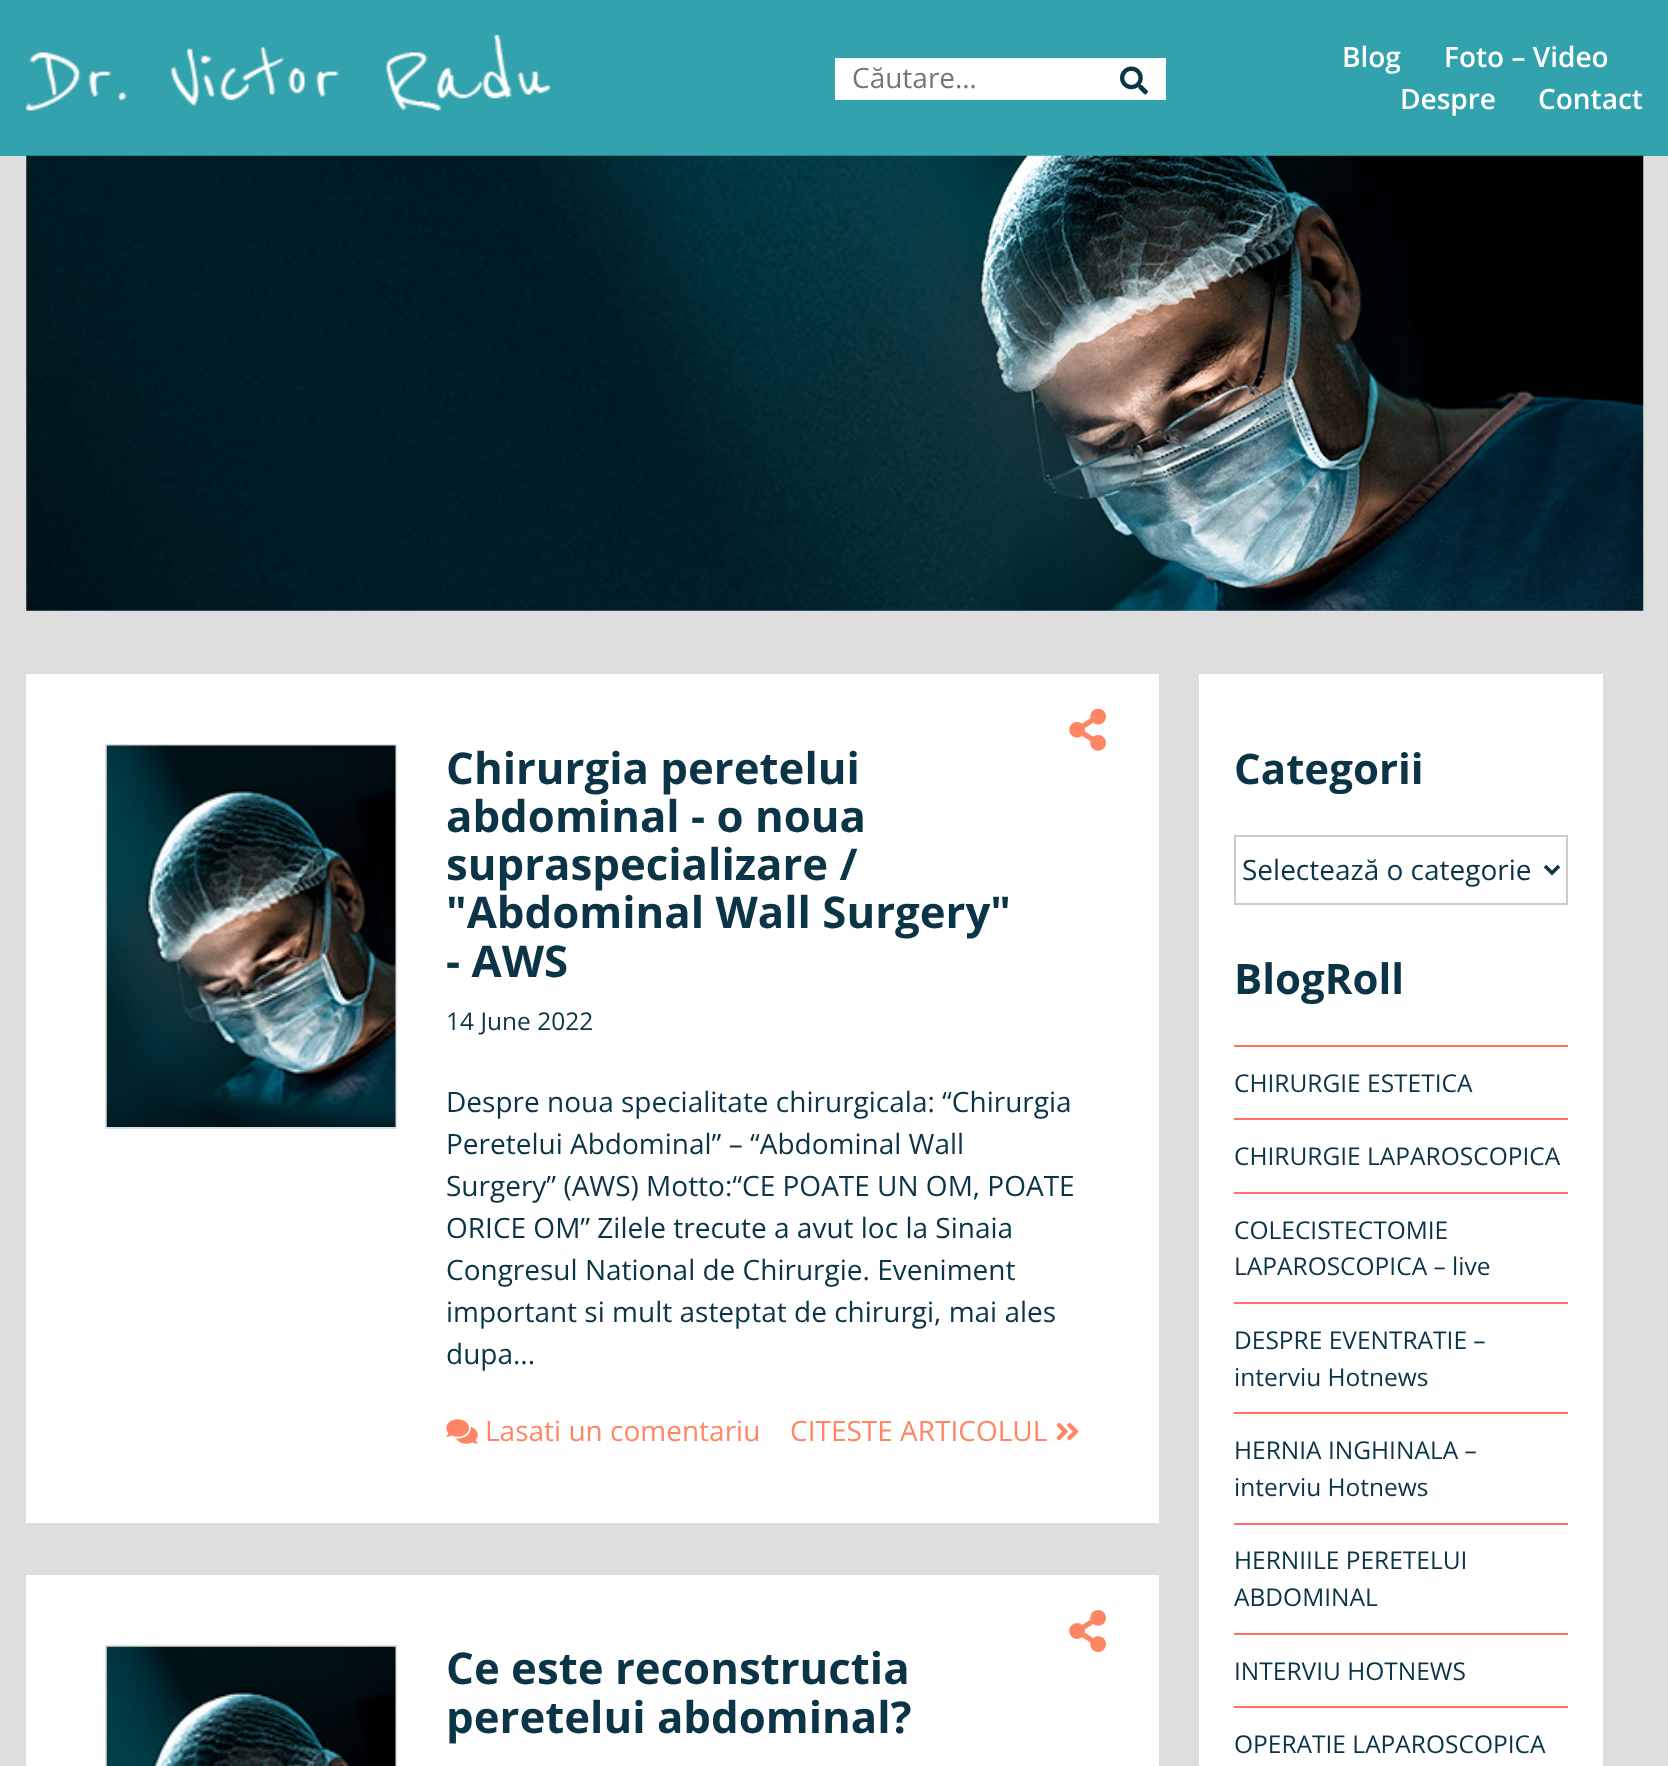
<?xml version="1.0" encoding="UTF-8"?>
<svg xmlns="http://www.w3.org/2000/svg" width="1668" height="1766">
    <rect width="100%" height="100%" fill="#DEDEDE"/>
    <rect x="0" y="0" width="1668" height="156" fill="#32A2AD"/>
    <image x="26" y="35" width="526" height="76" href="img_01.png"/>
    <rect x="835" y="58" width="331" height="42" fill="#FFFFFF"/>
    <text x="852" y="88" font-family="Open Sans" font-size="28" fill="#757575">Căutare…</text>
    <image x="1120" y="66" width="28" height="29" href="img_02.png"/>
    <text x="1342" y="67" font-family="Open Sans" font-size="28" font-weight="600" fill="#FFFFFF">Blog</text>
    <text x="1444" y="67" font-family="Open Sans" font-size="28" font-weight="600" fill="#FFFFFF">Foto – Video</text>
    <text x="1400" y="109" font-family="Open Sans" font-size="28" font-weight="600" fill="#FFFFFF">Despre</text>
    <text x="1538" y="109" font-family="Open Sans" font-size="28" font-weight="600" fill="#FFFFFF">Contact</text>
    <image x="26" y="155" width="1618" height="456" href="img_03.png"/>
    <rect x="26" y="674" width="1133" height="849" fill="#FFFFFF"/>
    <image x="1069" y="708" width="37" height="43" href="img_04.png"/>
    <rect x="106" y="745" width="290" height="383" fill="none" stroke="#DEDEDE" stroke-width="2"/>
    <image x="106" y="745" width="290" height="382" href="img_05.png"/>
    <text font-family="Open Sans" font-size="43.75" font-weight="700" fill="#0B3446">
        <tspan x="446" y="784">Chirurgia peretelui</tspan>
        <tspan x="446" y="832">abdominal - o noua</tspan>
        <tspan x="446" y="880">supraspecializare /</tspan>
        <tspan x="446" y="928">"Abdominal Wall Surgery"</tspan>
        <tspan x="446" y="977">- AWS</tspan>
    </text>
    <text x="446" y="1030" font-family="Open Sans" font-size="24.5" fill="#0B3446">14 June 2022</text>
    <text font-family="Open Sans" font-size="28" fill="#0B3446">
        <tspan x="446" y="1112">Despre noua specialitate chirurgicala: “Chirurgia</tspan>
        <tspan x="446" y="1154">Peretelui Abdominal” – “Abdominal Wall</tspan>
        <tspan x="446" y="1196">Surgery” (AWS) Motto:“CE POATE UN OM, POATE</tspan>
        <tspan x="446" y="1238">ORICE OM” Zilele trecute a avut loc la Sinaia</tspan>
        <tspan x="446" y="1280">Congresul National de Chirurgie. Eveniment</tspan>
        <tspan x="446" y="1322">important si mult asteptat de chirurgi, mai ales</tspan>
        <tspan x="446" y="1364">dupa...</tspan>
    </text>
    <image x="446" y="1419" width="32" height="25" href="img_06.png"/>
    <text x="485" y="1441" font-family="Open Sans" font-size="28" fill="#FF8665">Lasati un comentariu</text>
    <text x="790" y="1441" font-family="Open Sans" font-size="28" fill="#FF8665">CITESTE ARTICOLUL</text>
    <image x="1056" y="1422" width="23" height="19" href="img_07.png"/>
    <rect x="26" y="1575" width="1133" height="191" fill="#FFFFFF"/>
    <image x="1069" y="1610" width="37" height="42" href="img_08.png"/>
    <rect x="106" y="1646" width="290" height="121" fill="none" stroke="#DEDEDE" stroke-width="2"/>
    <image x="106" y="1646" width="290" height="120" href="img_09.png"/>
    <text font-family="Open Sans" font-size="43.75" font-weight="700" fill="#0B3446">
        <tspan x="446" y="1684">Ce este reconstructia</tspan>
        <tspan x="446" y="1733">peretelui abdominal?</tspan>
    </text>
    <rect x="1199" y="674" width="404" height="1092" fill="#FFFFFF"/>
    <text x="1234" y="784" font-family="Open Sans" font-size="42" font-weight="700" fill="#0B3446">Categorii</text>
    <rect x="1235" y="836" width="332" height="68" fill="none" stroke="#CCCCCC" stroke-width="2"/>
    <path d="M 1545 866 L 1552 873 L 1559 866" fill="none" stroke="#0B3446" stroke-width="3.5"/>
    <text x="1242" y="880" font-family="Open Sans" font-size="28" fill="#0B3446">Selectează o categorie</text>
    <text x="1234" y="994" font-family="Open Sans" font-size="42" font-weight="700" fill="#0B3446">BlogRoll</text>
    <rect x="1234" y="1045" width="334" height="2" fill="#FF7062"/>
    <rect x="1234" y="1118" width="334" height="2" fill="#FF7062"/>
    <text x="1234" y="1092" font-family="Open Sans" font-size="24.5" fill="#0B3446">CHIRURGIE ESTETICA</text>
    <rect x="1234" y="1192" width="334" height="2" fill="#FF7062"/>
    <text x="1234" y="1165" font-family="Open Sans" font-size="24.5" fill="#0B3446">CHIRURGIE LAPAROSCOPICA</text>
    <rect x="1234" y="1302" width="334" height="2" fill="#FF7062"/>
    <text font-family="Open Sans" font-size="24.5" fill="#0B3446">
        <tspan x="1234" y="1239">COLECISTECTOMIE</tspan>
        <tspan x="1234" y="1275">LAPAROSCOPICA – live</tspan>
    </text>
    <rect x="1234" y="1412" width="334" height="2" fill="#FF7062"/>
    <text font-family="Open Sans" font-size="24.5" fill="#0B3446">
        <tspan x="1234" y="1349">DESPRE EVENTRATIE –</tspan>
        <tspan x="1234" y="1386">interviu Hotnews</tspan>
    </text>
    <rect x="1234" y="1523" width="334" height="2" fill="#FF7062"/>
    <text font-family="Open Sans" font-size="24.5" fill="#0B3446">
        <tspan x="1234" y="1459">HERNIA INGHINALA –</tspan>
        <tspan x="1234" y="1496">interviu Hotnews</tspan>
    </text>
    <rect x="1234" y="1633" width="334" height="2" fill="#FF7062"/>
    <text font-family="Open Sans" font-size="24.5" fill="#0B3446">
        <tspan x="1234" y="1569">HERNIILE PERETELUI</tspan>
        <tspan x="1234" y="1606">ABDOMINAL</tspan>
    </text>
    <rect x="1234" y="1706" width="334" height="2" fill="#FF7062"/>
    <text x="1234" y="1680" font-family="Open Sans" font-size="24.5" fill="#0B3446">INTERVIU HOTNEWS</text>
    <text x="1234" y="1753" font-family="Open Sans" font-size="24.5" fill="#0B3446">OPERATIE LAPAROSCOPICA</text>
</svg>
